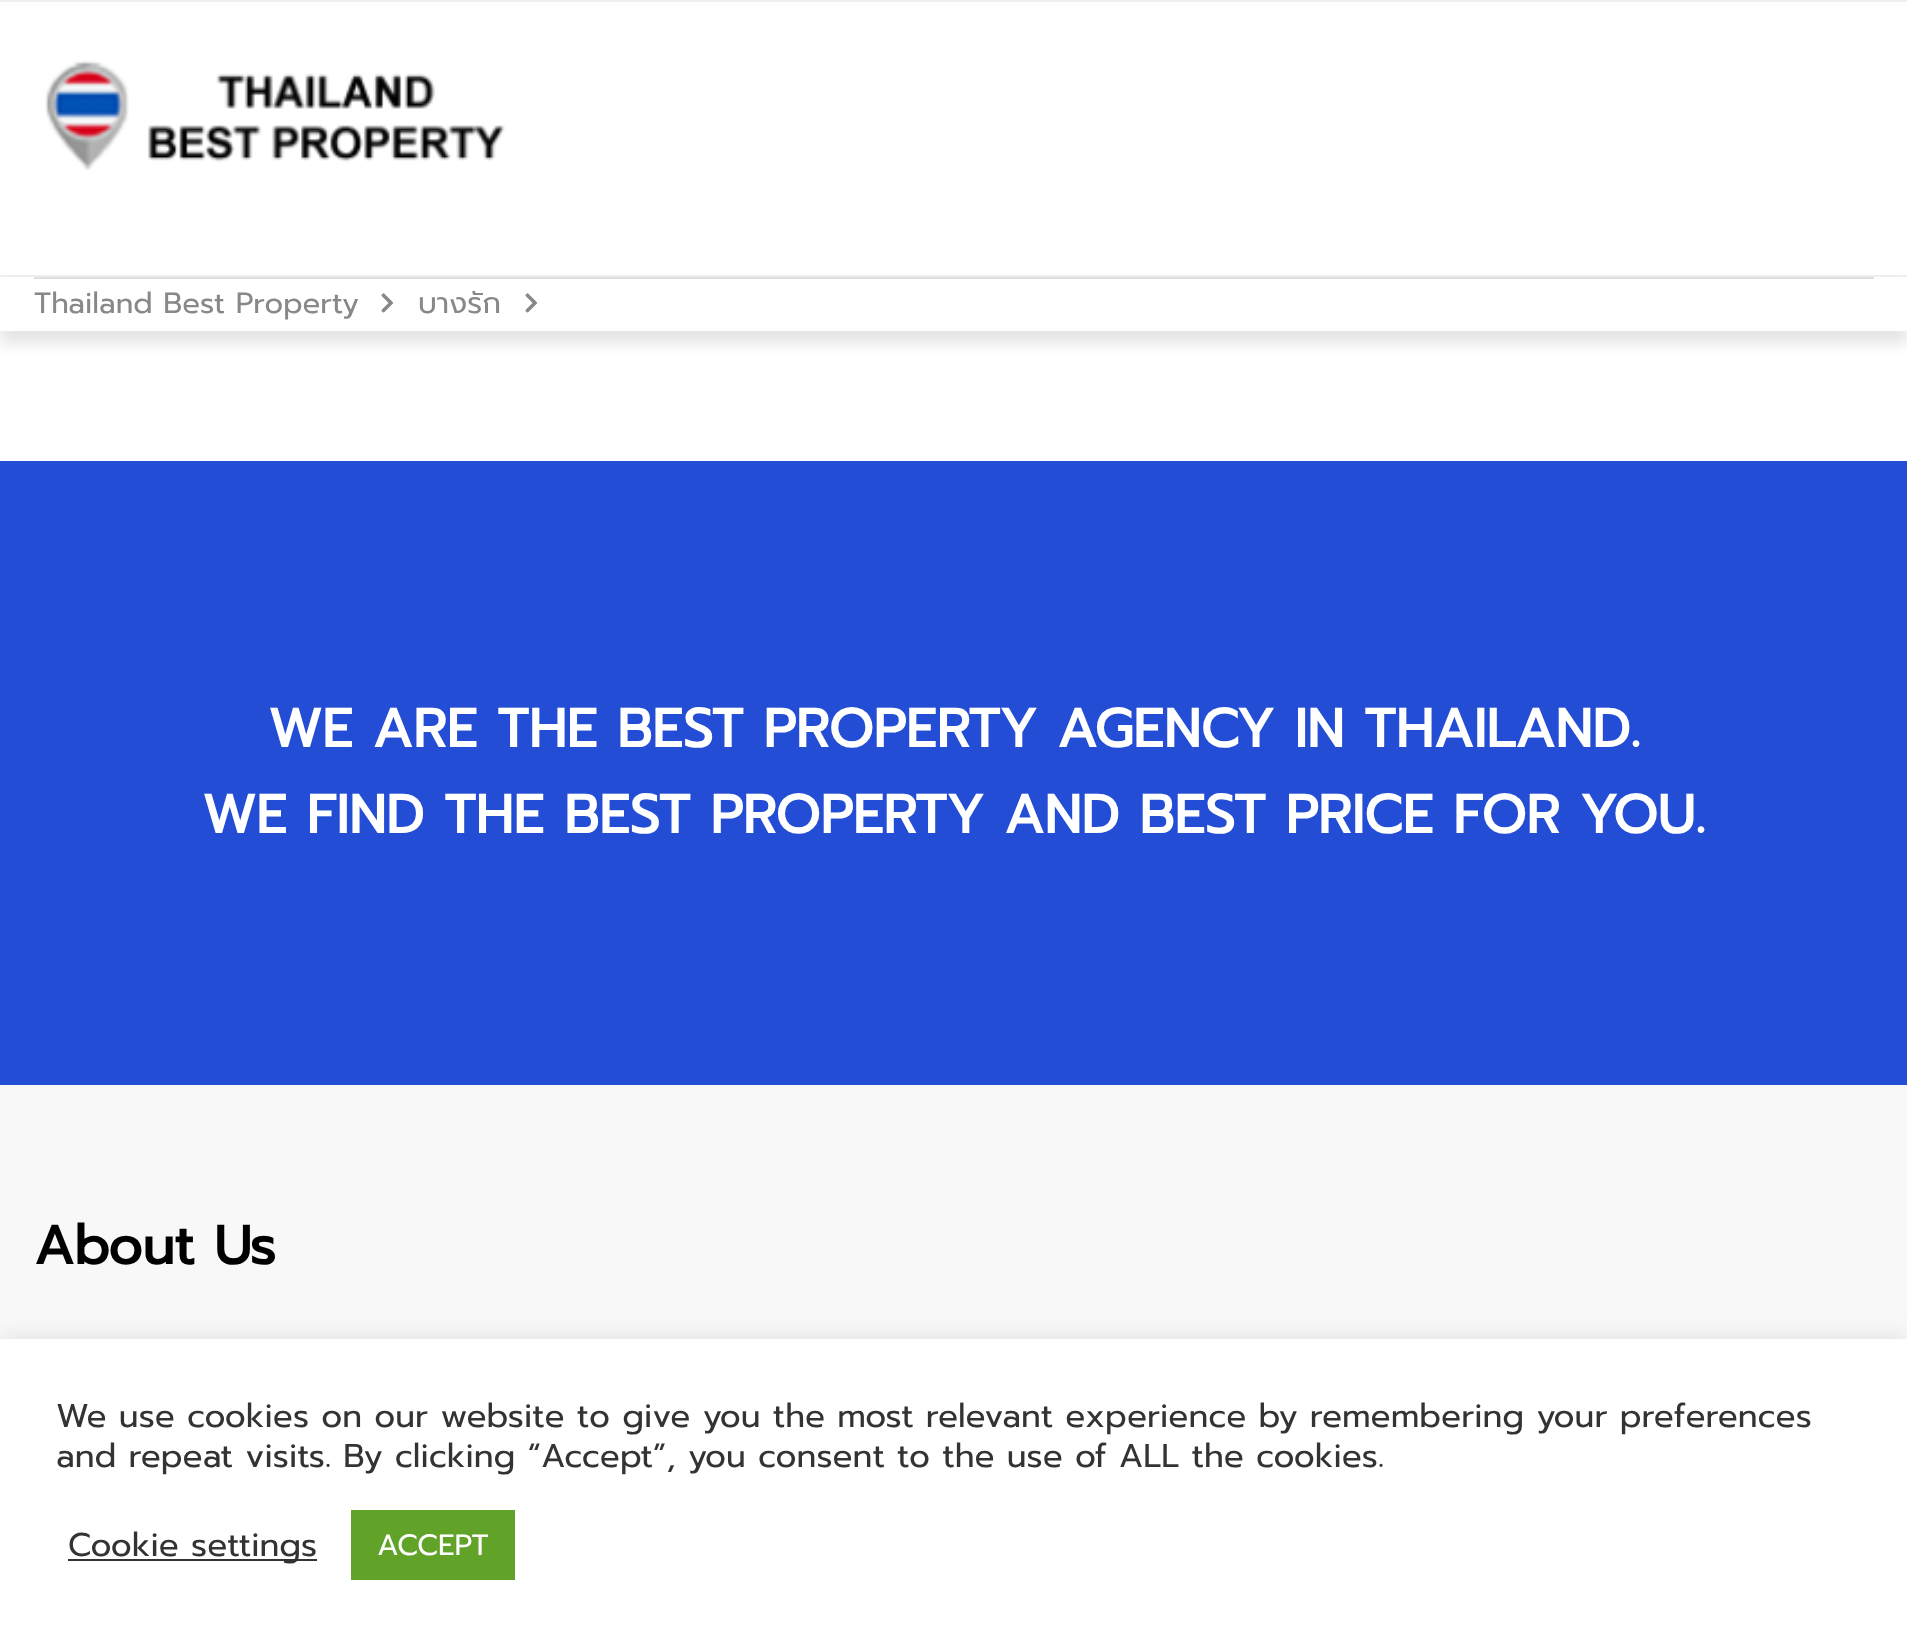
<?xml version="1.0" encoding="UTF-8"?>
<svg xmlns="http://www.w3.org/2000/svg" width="1907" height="1647">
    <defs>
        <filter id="blur1" x="-50%" y="-200%" width="200%" height="500%"><feGaussianBlur stdDeviation="7"/></filter>
        <filter id="blur2" x="-50%" y="-200%" width="200%" height="500%"><feGaussianBlur stdDeviation="11"/></filter>
    </defs>
    <rect width="100%" height="100%" fill="#FFFFFF"/>
    <rect x="0" y="0" width="1907" height="2" fill="#EFEFEF"/>
    <rect x="0" y="290" width="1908" height="54" fill="#000000" fill-opacity="0.1" filter="url(#blur1)"/>
    <rect x="0" y="275" width="1907" height="2" fill="#EEEFEF"/>
    <image x="45" y="60" width="460" height="111" href="img_01.png"/>
    <rect x="0" y="281" width="1907" height="50" fill="#FFFFFF"/>
    <rect x="34" y="277" width="1840" height="2" fill="#DEDFDF"/>
    <text x="34" y="313" font-family="Prompt" font-size="29.25" fill="#888888">Thailand Best Property</text>
    <image x="381" y="293" width="13" height="20" href="img_02.png"/>
    <text x="418" y="313" font-family="Prompt" font-size="29.25" fill="#888888">บางรัก</text>
    <image x="525" y="293" width="13" height="20" href="img_02.png"/>
    <rect x="0" y="461" width="1907" height="624" fill="#234DD4"/>
    <text x="268" y="747" font-family="Prompt" font-size="54" font-weight="700" fill="#FFFFFF">WE ARE THE BEST PROPERTY AGENCY IN THAILAND.</text>
    <text x="202" y="833" font-family="Prompt" font-size="54" font-weight="700" fill="#FFFFFF">WE FIND THE BEST PROPERTY AND BEST PRICE FOR YOU.</text>
    <rect x="0" y="1085" width="1907" height="254" fill="#F8F8F8"/>
    <text x="34" y="1264" font-family="Prompt" font-size="54" font-weight="700" letter-spacing="-0.25" fill="#000000">About Us</text>
    <rect x="0" y="1337" width="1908" height="308" fill="#ACABAB" fill-opacity="0.3" filter="url(#blur2)"/>
    <rect x="0" y="1339" width="1907" height="308" fill="#FFFFFF"/>
    <text font-family="Prompt" font-size="33" fill="#333333">
        <tspan x="56" y="1427">We use cookies on our website to give you the most relevant experience by remembering your preferences</tspan>
        <tspan x="56" y="1467">and repeat visits. By clicking “Accept”, you consent to the use of ALL the cookies.</tspan>
    </text>
    <rect x="68" y="1559" width="249" height="2" fill="#333333"/>
    <text x="68" y="1556" font-family="Prompt" font-size="33" fill="#333333">Cookie settings</text>
    <rect x="351" y="1510" width="164" height="70" fill="#61A229"/>
    <text x="377" y="1555" font-family="Prompt" font-size="29.25" fill="#FFFFFF">ACCEPT</text>
</svg>
